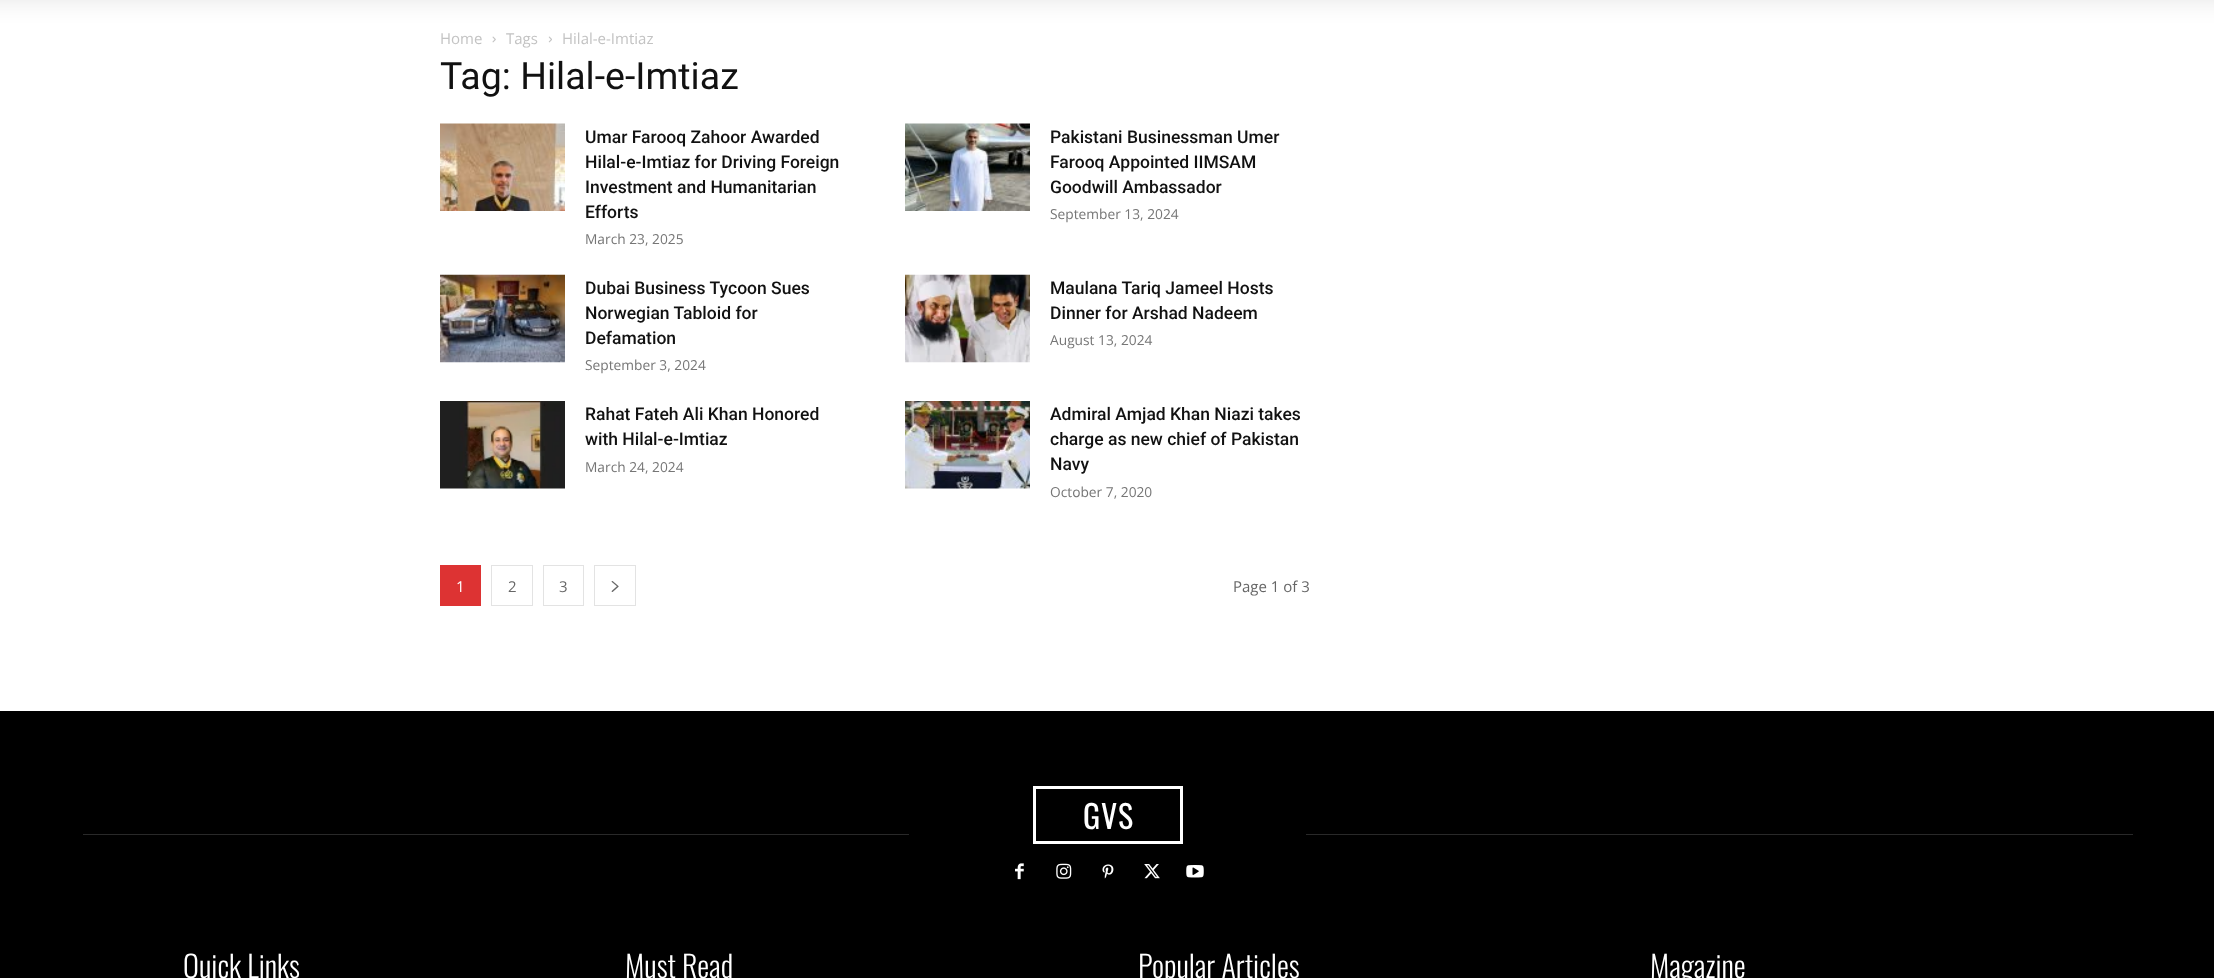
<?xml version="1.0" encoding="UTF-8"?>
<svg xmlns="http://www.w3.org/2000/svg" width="2214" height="978">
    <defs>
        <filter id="blur1" x="-50%" y="-200%" width="200%" height="500%"><feGaussianBlur stdDeviation="12.5"/></filter>
    </defs>
    <rect width="100%" height="100%" fill="#FFFFFF"/>
    <image x="492" y="36" width="4" height="7" href="img_01.png"/>
    <image x="548" y="36" width="4" height="7" href="img_02.png"/>
    <rect x="-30" y="-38" width="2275" height="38" fill="#000000" fill-opacity="0.1" filter="url(#blur1)"/>
    <text x="440" y="44" font-family="Open Sans" font-size="15" fill="#C3C3C3">Home</text>
    <text x="506" y="44" font-family="Open Sans" font-size="15" fill="#C3C3C3">Tags</text>
    <text x="562" y="44" font-family="Open Sans" font-size="15" fill="#C3C3C3">Hilal-e-Imtiaz</text>
    <text x="440" y="89" font-family="Roboto" font-size="37.5" fill="#111111">Tag: Hilal-e-Imtiaz</text>
    <image x="440" y="123" width="125" height="88" href="img_03.png"/>
    <text font-family="Roboto" font-size="17.5" font-weight="500" fill="#111111">
        <tspan x="585" y="143">Umar Farooq Zahoor Awarded</tspan>
        <tspan x="585" y="168">Hilal-e-Imtiaz for Driving Foreign</tspan>
        <tspan x="585" y="193">Investment and Humanitarian</tspan>
        <tspan x="585" y="218">Efforts</tspan>
    </text>
    <text x="585" y="244" font-family="Open Sans" font-size="13.75" fill="#767676">March 23, 2025</text>
    <image x="905" y="123" width="125" height="88" href="img_04.png"/>
    <text font-family="Roboto" font-size="17.5" font-weight="500" fill="#111111">
        <tspan x="1050" y="143">Pakistani Businessman Umer</tspan>
        <tspan x="1050" y="168">Farooq Appointed IIMSAM</tspan>
        <tspan x="1050" y="193">Goodwill Ambassador</tspan>
    </text>
    <text x="1050" y="219" font-family="Open Sans" font-size="13.75" fill="#767676">September 13, 2024</text>
    <image x="440" y="274" width="125" height="89" href="img_05.png"/>
    <text font-family="Roboto" font-size="17.5" font-weight="500" fill="#111111">
        <tspan x="585" y="294">Dubai Business Tycoon Sues</tspan>
        <tspan x="585" y="319">Norwegian Tabloid for</tspan>
        <tspan x="585" y="344">Defamation</tspan>
    </text>
    <text x="585" y="370" font-family="Open Sans" font-size="13.75" fill="#767676">September 3, 2024</text>
    <image x="905" y="274" width="125" height="89" href="img_06.png"/>
    <text font-family="Roboto" font-size="17.5" font-weight="500" fill="#111111">
        <tspan x="1050" y="294">Maulana Tariq Jameel Hosts</tspan>
        <tspan x="1050" y="319">Dinner for Arshad Nadeem</tspan>
    </text>
    <text x="1050" y="345" font-family="Open Sans" font-size="13.75" fill="#767676">August 13, 2024</text>
    <image x="440" y="401" width="125" height="88" href="img_07.png"/>
    <text font-family="Roboto" font-size="17.5" font-weight="500" fill="#111111">
        <tspan x="585" y="420">Rahat Fateh Ali Khan Honored</tspan>
        <tspan x="585" y="445">with Hilal-e-Imtiaz</tspan>
    </text>
    <text x="585" y="472" font-family="Open Sans" font-size="13.75" fill="#767676">March 24, 2024</text>
    <image x="905" y="401" width="125" height="88" href="img_08.png"/>
    <text font-family="Roboto" font-size="17.5" font-weight="500" fill="#111111">
        <tspan x="1050" y="420">Admiral Amjad Khan Niazi takes</tspan>
        <tspan x="1050" y="445">charge as new chief of Pakistan</tspan>
        <tspan x="1050" y="470">Navy</tspan>
    </text>
    <text x="1050" y="497" font-family="Open Sans" font-size="13.75" fill="#767676">October 7, 2020</text>
    <rect x="440" y="565" width="41" height="41" fill="#DD3333"/>
    <text x="456" y="592" font-family="Open Sans" font-size="15" fill="#FFFFFF">1</text>
    <rect x="491.5" y="565.5" width="41" height="40" fill="none" stroke="#E3E3E3"/>
    <text x="508" y="592" font-family="Open Sans" font-size="15" fill="#666666">2</text>
    <rect x="543.5" y="565.5" width="40" height="40" fill="none" stroke="#E3E3E3"/>
    <text x="559" y="592" font-family="Open Sans" font-size="15" fill="#666666">3</text>
    <rect x="594.5" y="565.5" width="41" height="40" fill="none" stroke="#E3E3E3"/>
    <image x="611" y="581" width="8" height="11" href="img_09.png"/>
    <text x="1233" y="592" font-family="Open Sans" font-size="15" fill="#666666">Page 1 of 3</text>
    <rect x="0" y="711" width="2214" height="267" fill="#000000"/>
    <rect x="1034.5" y="787.5" width="147" height="55" fill="none" stroke="#FFFFFF" stroke-width="3"/>
    <text x="1083" y="829" font-family="Oswald" font-size="32" letter-spacing="1" fill="#FFFFFF">GVS</text>
    <image x="1015" y="863" width="9" height="17" href="img_10.png"/>
    <image x="1056" y="863" width="16" height="16" href="img_11.png"/>
    <image x="1102" y="864" width="12" height="15" href="img_12.png"/>
    <image x="1144" y="864" width="16" height="15" href="img_13.png"/>
    <image x="1186" y="865" width="18" height="13" href="img_14.png"/>
    <rect x="83" y="834" width="826" height="1" fill="#292929"/>
    <rect x="1306" y="834" width="827" height="1" fill="#292929"/>
    <text x="183" y="978" font-family="Oswald" font-size="30" font-weight="300" fill="#FFFFFF">Quick Links</text>
    <text x="625" y="978" font-family="Oswald" font-size="30" font-weight="300" fill="#FFFFFF">Must Read</text>
    <text x="1138" y="978" font-family="Oswald" font-size="30" font-weight="300" fill="#FFFFFF">Popular Articles</text>
    <text x="1650" y="978" font-family="Oswald" font-size="30" font-weight="300" fill="#FFFFFF">Magazine</text>
</svg>
